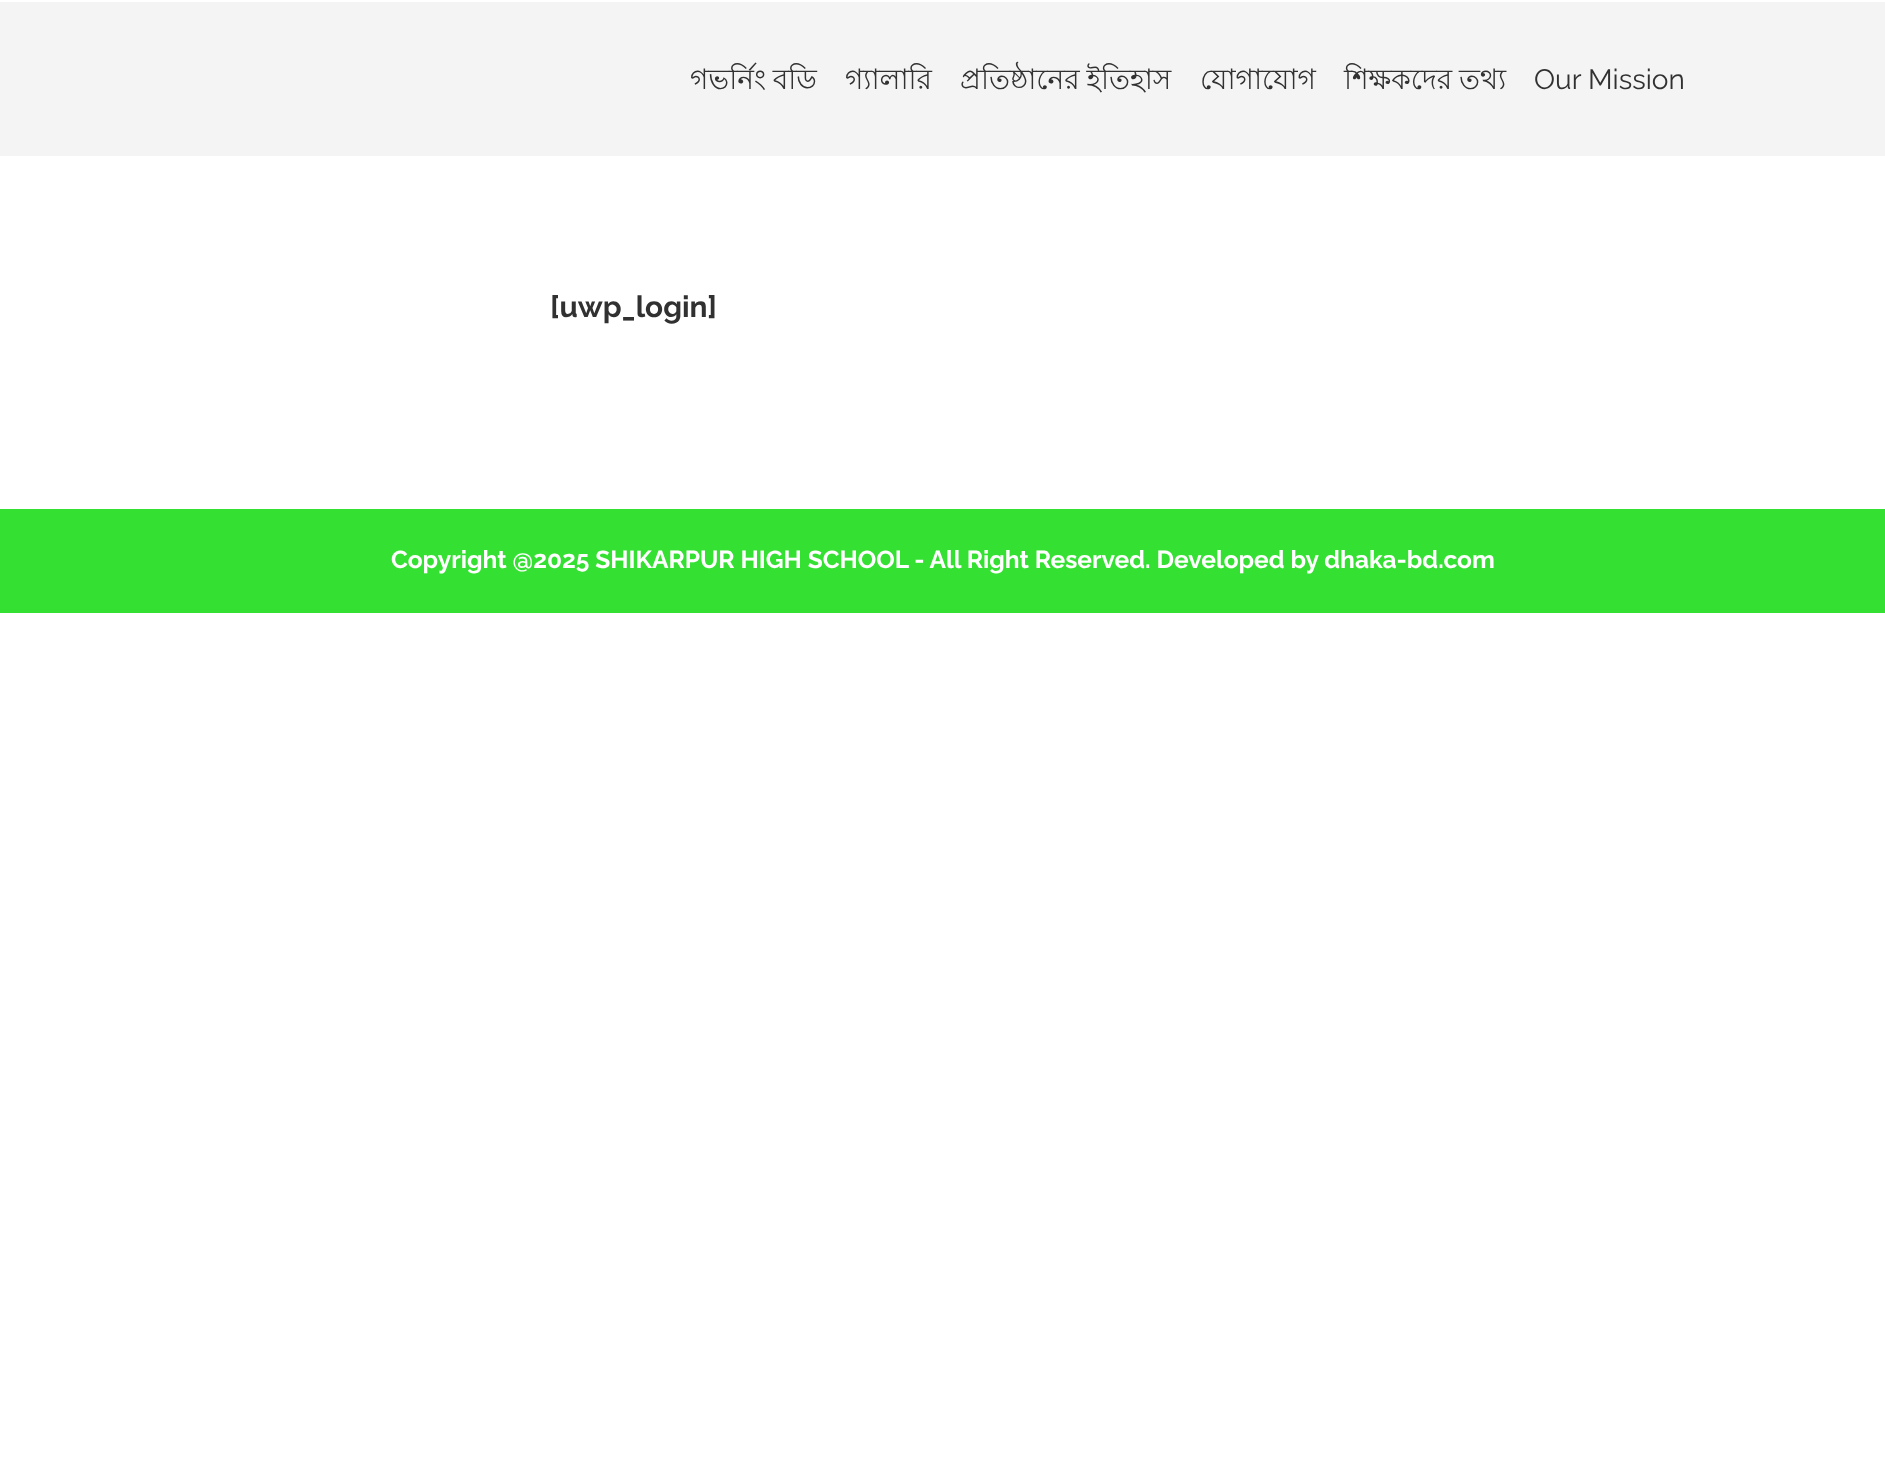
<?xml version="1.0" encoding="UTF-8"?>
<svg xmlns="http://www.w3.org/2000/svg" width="1885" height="1457">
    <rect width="100%" height="100%" fill="#FFFFFF"/>
    <rect x="0" y="2" width="1885" height="154" fill="#F4F4F4"/>
    <text x="690" y="89" word-spacing="-1" font-family="Lohit Bengali" font-size="28" fill="#313131">গভর্নিং বডি</text>
    <text x="845" y="89" font-family="Lohit Bengali" font-size="28" fill="#313131">গ্যালারি</text>
    <text x="960" y="89" word-spacing="-1" font-family="Lohit Bengali" font-size="28" fill="#313131">প্রতিষ্ঠানের ইতিহাস</text>
    <text x="1200" y="89" font-family="Lohit Bengali" font-size="28" fill="#313131">যোগাযোগ</text>
    <text x="1344" y="89" word-spacing="-1" font-family="Lohit Bengali" font-size="28" fill="#313131">শিক্ষকদের তথ্য</text>
    <text x="1534" y="89" font-family="Raleway" font-size="28" fill="#313131">Our Mission</text>
    <text x="550" y="317" font-family="Raleway" font-size="29.75" font-weight="700" fill="#313131">[uwp_login]</text>
    <rect x="0" y="509" width="1885" height="104" fill="#34E031"/>
    <text x="391" y="568" font-family="Raleway" font-size="24.5" font-weight="700" fill="#FFFFFF">Copyright @2025 SHIKARPUR HIGH SCHOOL - All Right Reserved. Developed by dhaka-bd.com</text>
</svg>
